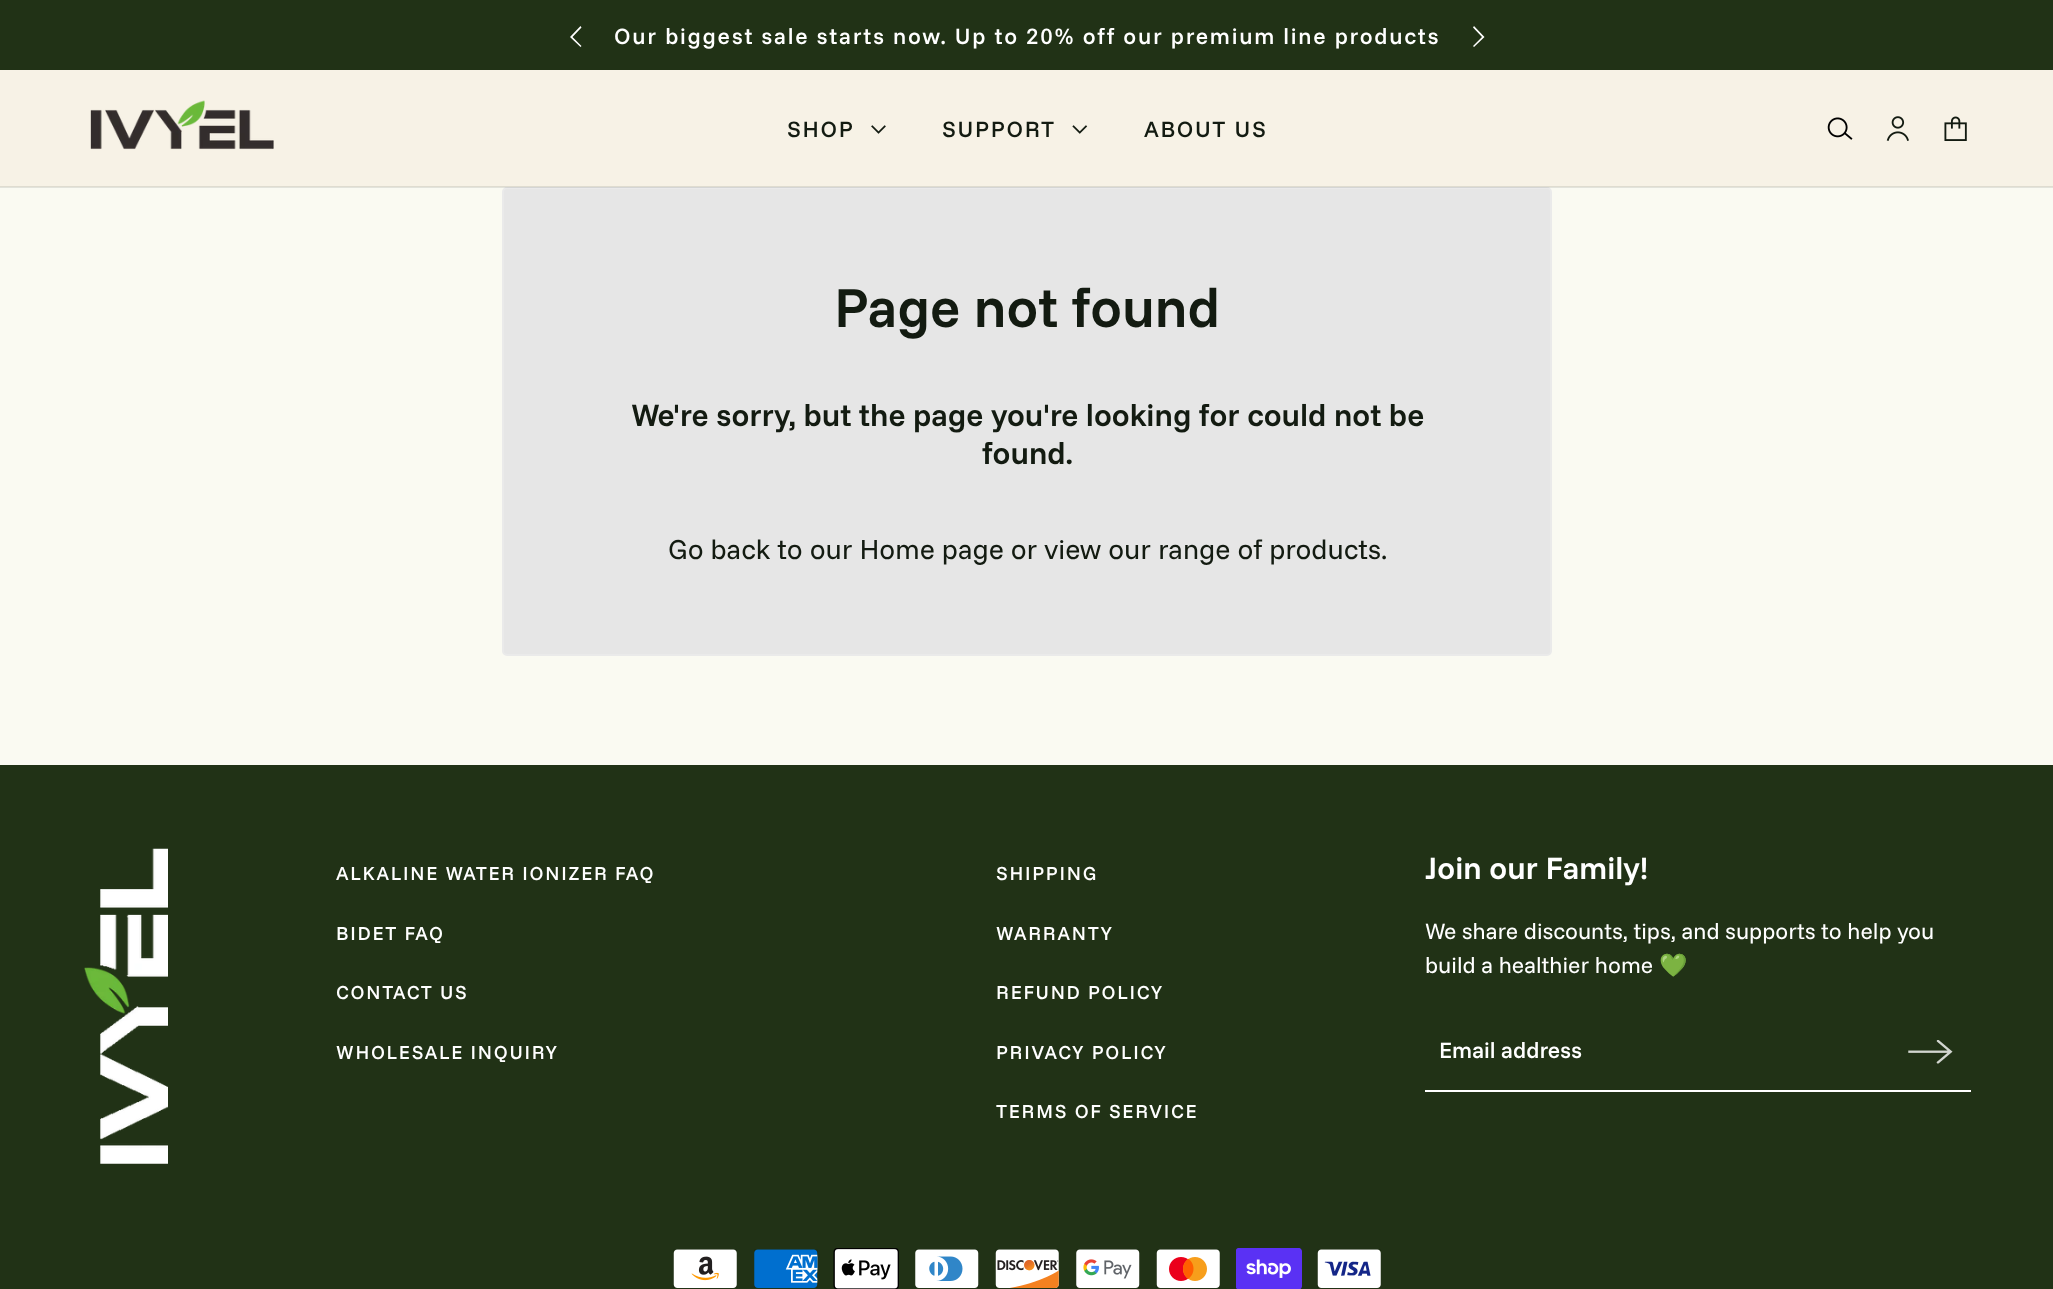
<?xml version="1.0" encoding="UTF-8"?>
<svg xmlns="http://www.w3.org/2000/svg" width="2053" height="1289">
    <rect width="100%" height="100%" fill="#FAFAF2"/>
    <rect x="0" y="0" width="2053" height="70" fill="#213216"/>
    <path d="M 572.5 37 L 581.5 46 L 580.5 47 L 570 37 L 580.5 26 L 581.5 27.5 Z" fill="#FFFFFF"/>
    <text x="614" y="44" font-family="Funnel Sans" font-size="22.75" font-weight="500" letter-spacing="1.75" fill="#FFFFFF">Our biggest sale starts now. Up to 20% off our premium line products</text>
    <path d="M 1482 37 L 1473 27.5 L 1474 26 L 1484.5 37 L 1474 47 L 1473 46 Z" fill="#FFFFFF"/>
    <rect x="0" y="70" width="2053" height="117" fill="#F7F2E6"/>
    <image x="90" y="100" width="184" height="50" href="img_01.png"/>
    <text x="787" y="137" font-family="Funnel Sans" font-size="22.75" font-weight="500" letter-spacing="1.75" fill="#131B11">SHOP</text>
    <image x="871" y="125" width="15" height="9" href="img_02.png"/>
    <text x="942" y="137" font-family="Funnel Sans" font-size="22.75" font-weight="500" letter-spacing="1.75" fill="#131B11">SUPPORT</text>
    <image x="1072" y="125" width="16" height="9" href="img_03.png"/>
    <text x="1144" y="137" font-family="Funnel Sans" font-size="22.75" font-weight="500" letter-spacing="1.75" fill="#131B11">ABOUT US</text>
    <image x="1827" y="117" width="26" height="23" href="img_04.png"/>
    <image x="1886" y="116" width="23" height="25" href="img_05.png"/>
    <image x="1944" y="116" width="23" height="25" href="img_06.png"/>
    <rect x="503" y="188" width="1048" height="467" rx="4" fill="#E6E6E6" stroke="#EAEAEA" stroke-width="2"/>
    <rect x="0" y="186" width="2053" height="2" fill="#131B11" fill-opacity="0.1"/>
    <text x="834" y="327" font-family="Funnel Sans" font-size="56" font-weight="600" fill="#131B11">Page not found</text>
    <text x="631" y="426" font-family="Funnel Sans" font-size="31.5" font-weight="600" fill="#131B11">We're sorry, but the page you're looking for could not be</text>
    <text x="982" y="464" font-family="Funnel Sans" font-size="31.5" font-weight="600" fill="#131B11">found.</text>
    <text x="668" y="559" font-family="Funnel Sans" font-size="28" fill="#131B11">Go back to our Home page or view our range of products.</text>
    <rect x="0" y="765" width="2053" height="524" fill="#213216"/>
    <image x="84" y="848" width="84" height="316" href="img_07.png"/>
    <text x="336" y="880" font-family="Funnel Sans" font-size="19.25" font-weight="500" letter-spacing="1.75" fill="#FFFFFF">ALKALINE WATER IONIZER FAQ</text>
    <text x="336" y="940" font-family="Funnel Sans" font-size="19.25" font-weight="500" letter-spacing="1.75" fill="#FFFFFF">BIDET FAQ</text>
    <text x="336" y="999" font-family="Funnel Sans" font-size="19.25" font-weight="500" letter-spacing="1.75" fill="#FFFFFF">CONTACT US</text>
    <text x="336" y="1059" font-family="Funnel Sans" font-size="19.25" font-weight="500" letter-spacing="1.75" fill="#FFFFFF">WHOLESALE INQUIRY</text>
    <text x="996" y="880" font-family="Funnel Sans" font-size="19.25" font-weight="500" letter-spacing="1.75" fill="#FFFFFF">SHIPPING</text>
    <text x="996" y="940" font-family="Funnel Sans" font-size="19.25" font-weight="500" letter-spacing="1.75" fill="#FFFFFF">WARRANTY</text>
    <text x="996" y="999" font-family="Funnel Sans" font-size="19.25" font-weight="500" letter-spacing="1.75" fill="#FFFFFF">REFUND POLICY</text>
    <text x="996" y="1059" font-family="Funnel Sans" font-size="19.25" font-weight="500" letter-spacing="1.75" fill="#FFFFFF">PRIVACY POLICY</text>
    <text x="996" y="1118" font-family="Funnel Sans" font-size="19.25" font-weight="500" letter-spacing="1.75" fill="#FFFFFF">TERMS OF SERVICE</text>
    <text x="1425" y="879" font-family="Funnel Sans" font-size="31.5" font-weight="600" fill="#FFFFFF">Join our Family!</text>
    <text font-family="Funnel Sans" font-size="22.75" fill="#FFFFFF">
        <tspan x="1425" y="939">We share discounts, tips, and supports to help you</tspan>
        <tspan x="1425" y="973">build a healthier home</tspan>
    </text>
    <text x="1659" y="973" font-family="Noto Color Emoji" font-size="22.75" fill="#FFFFFF">💚</text>
    <rect x="1425" y="1090" width="546" height="2" fill="#FFFFFF"/>
    <text x="1439" y="1058" font-family="Funnel Sans" font-size="22.75" font-weight="500" fill="#FFFFFF">Email address</text>
    <image x="1908" y="1040" width="45" height="24" href="img_08.png"/>
    <image x="673" y="1249" width="64" height="39" href="img_09.png"/>
    <image x="754" y="1249" width="64" height="39" href="img_10.png"/>
    <image x="833" y="1248" width="66" height="41" href="img_11.png"/>
    <image x="915" y="1249" width="64" height="39" href="img_12.png"/>
    <image x="995" y="1249" width="64" height="39" href="img_13.png"/>
    <image x="1076" y="1249" width="64" height="39" href="img_14.png"/>
    <image x="1156" y="1249" width="64" height="39" href="img_15.png"/>
    <image x="1236" y="1248" width="66" height="41" href="img_16.png"/>
    <image x="1317" y="1249" width="64" height="39" href="img_17.png"/>
</svg>
